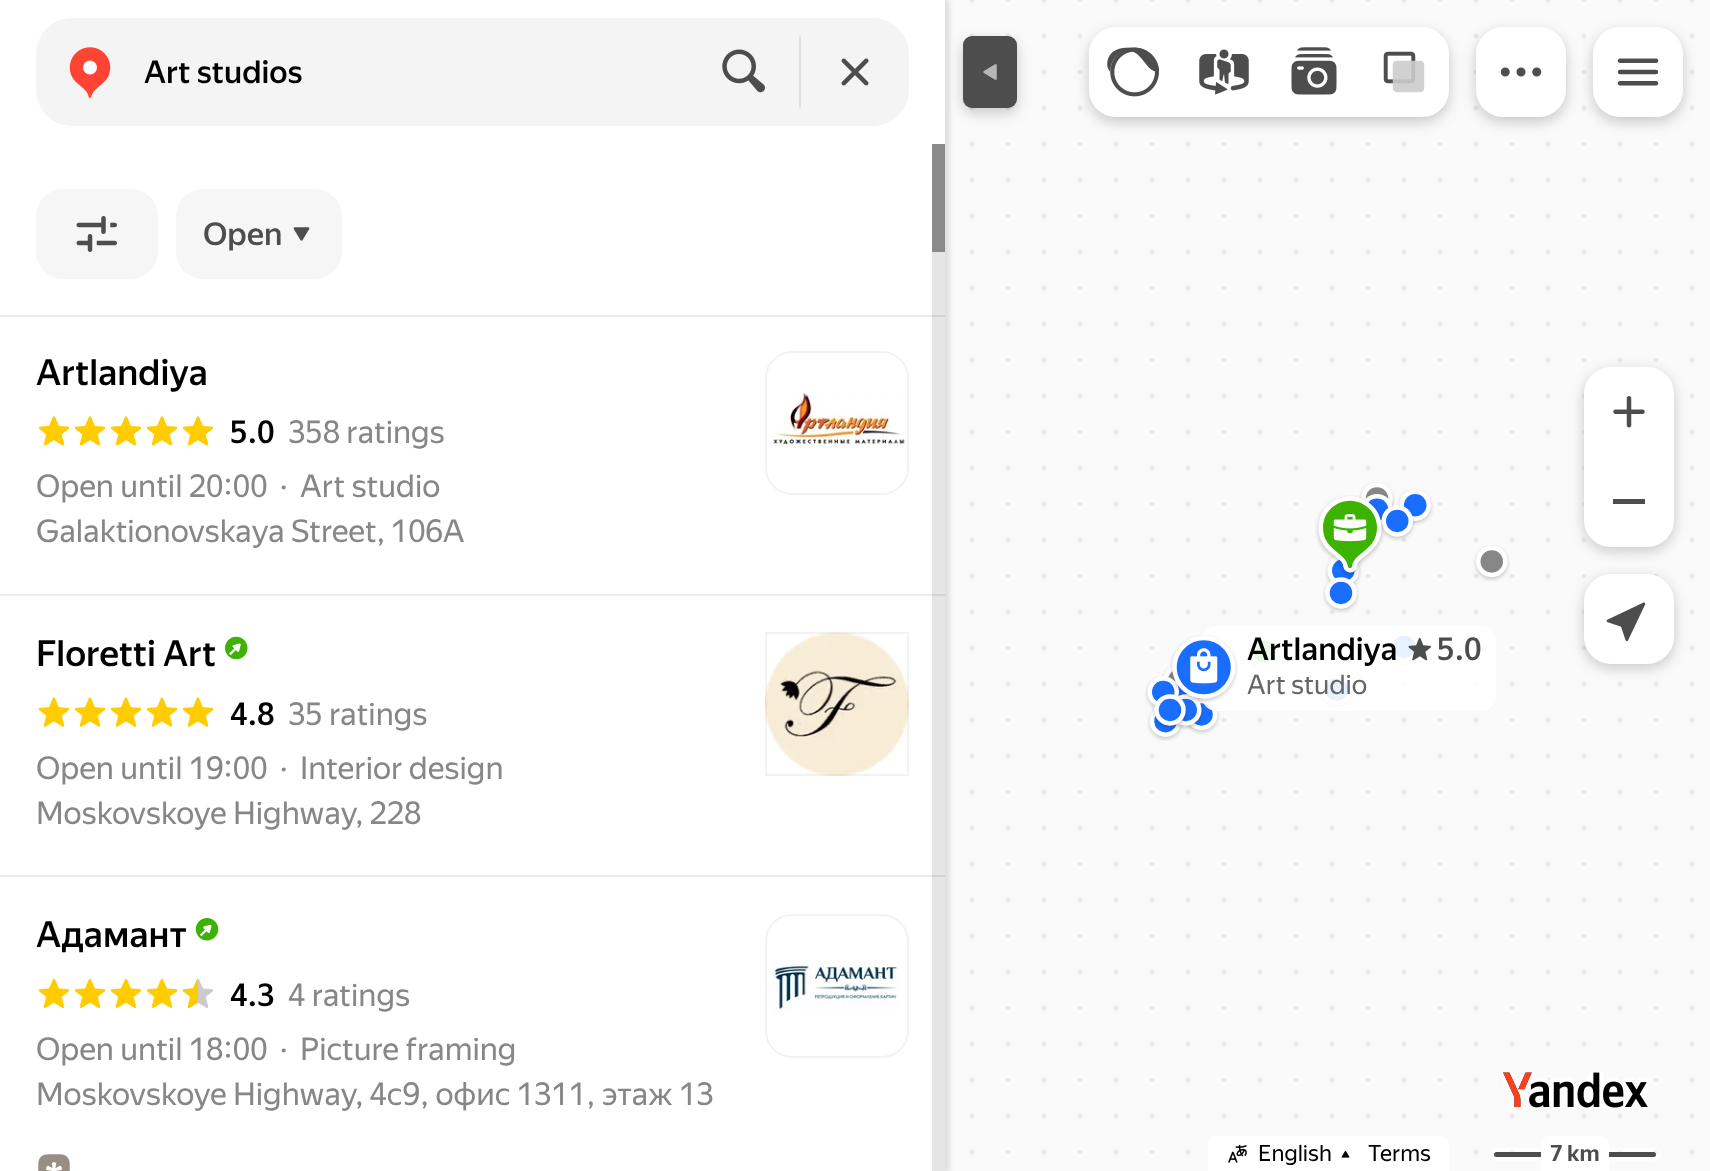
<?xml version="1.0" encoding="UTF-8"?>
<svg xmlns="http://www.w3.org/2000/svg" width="1710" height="1171">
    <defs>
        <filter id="blur1" x="-50%" y="-200%" width="200%" height="500%"><feGaussianBlur stdDeviation="2"/></filter>
        <filter id="blur2" x="-50%" y="-200%" width="200%" height="500%"><feGaussianBlur stdDeviation="7"/></filter>
    </defs>
    <rect width="100%" height="100%" fill="#FFFFFF"/>
    <image x="945" y="0" width="765" height="1171" href="img_01.png"/>
    <rect x="5" y="0" width="945" height="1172" fill="#000000" fill-opacity="0.1" filter="url(#blur1)"/>
    <rect x="963" y="41" width="54" height="72" rx="9" fill="#000000" fill-opacity="0.2" filter="url(#blur2)"/>
    <rect x="2" y="0" width="943" height="1171" fill="#FFFFFF"/>
    <rect x="36" y="18" width="873" height="108" rx="36" fill="#F4F4F4"/>
    <image x="69" y="47" width="42" height="51" href="img_02.png"/>
    <text x="144" y="83" font-family="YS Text" font-size="31.5" font-weight="500" fill="#000000">Art studios</text>
    <image x="722" y="49" width="43" height="44" href="img_03.png"/>
    <rect x="799" y="36" width="2" height="72" fill="#E0E0E0"/>
    <image x="841" y="58" width="28" height="28" href="img_04.png"/>
    <rect x="1089" y="32" width="360" height="90" rx="27" fill="#000000" fill-opacity="0.2" filter="url(#blur2)"/>
    <path d="M 1116 27 H 1179 V 117 H 1116 C 1101 117 1089 105 1089 90 V 54 C 1089 39 1101 27 1116 27 Z" fill="#FFFFFF"/>
    <image x="1107" y="47" width="52" height="50" href="img_05.png"/>
    <rect x="1179" y="27" width="180" height="90" fill="#FFFFFF"/>
    <image x="1199" y="49" width="50" height="46" href="img_06.png"/>
    <path d="M 1359 27 H 1422 C 1437 27 1449 39 1449 54 V 90 C 1449 105 1437 117 1422 117 H 1359 Z" fill="#FFFFFF"/>
    <image x="1383" y="51" width="42" height="42" href="img_07.png"/>
    <image x="1291" y="47" width="46" height="48" href="img_08.png"/>
    <rect x="1476" y="32" width="90" height="90" rx="27" fill="#000000" fill-opacity="0.2" filter="url(#blur2)"/>
    <rect x="1476" y="27" width="90" height="90" rx="27" fill="#FFFFFF"/>
    <image x="1500" y="67" width="42" height="10" href="img_09.png"/>
    <rect x="1593" y="32" width="90" height="90" rx="27" fill="#000000" fill-opacity="0.2" filter="url(#blur2)"/>
    <rect x="1593" y="27" width="90" height="90" rx="27" fill="#FFFFFF"/>
    <image x="1617" y="58" width="42" height="28" href="img_10.png"/>
    <rect x="1584" y="371" width="90" height="180" rx="27" fill="#000000" fill-opacity="0.2" filter="url(#blur2)"/>
    <path d="M 1611 367 H 1647 C 1662 367 1674 379 1674 394 V 457 H 1584 V 394 C 1584 379 1596 367 1611 367 Z" fill="#FFFFFF"/>
    <image x="1613" y="396" width="32" height="32" href="img_11.png"/>
    <path d="M 1584 457 H 1674 V 520 C 1674 535 1662 547 1647 547 H 1611 C 1596 547 1584 535 1584 520 Z" fill="#FFFFFF"/>
    <rect x="1613" y="499" width="32" height="5" fill="#4D4D4D"/>
    <rect x="1584" y="578" width="90" height="90" rx="27" fill="#000000" fill-opacity="0.2" filter="url(#blur2)"/>
    <rect x="1584" y="574" width="90" height="90" rx="27" fill="#FFFFFF"/>
    <image x="1606" y="602" width="40" height="40" href="img_12.png"/>
    <rect x="963" y="36" width="54" height="72" rx="9" fill="#4D4D4D"/>
    <image x="983" y="64" width="14" height="16" href="img_13.png"/>
    <rect x="0" y="315" width="945" height="2" fill="#EBEBEB"/>
    <rect x="36" y="189" width="122" height="90" rx="27" fill="#F6F6F6"/>
    <image x="76" y="216" width="41" height="36" href="img_14.png"/>
    <rect x="176" y="189" width="166" height="90" rx="27" fill="#F6F6F6"/>
    <text x="203" y="245" font-family="YS Text" font-size="31.5" font-weight="500" fill="#4D4D4D">Open</text>
    <image x="293" y="227" width="17" height="14" href="img_15.png"/>
    <rect x="0" y="594" width="945" height="2" fill="#EBEBEB"/>
    <text x="36" y="385" font-family="YS Text" font-size="36" font-weight="500" fill="#000000">Artlandiya</text>
    <image x="773" y="392" width="133" height="55" href="img_16.png"/>
    <rect x="766" y="352" width="142" height="142" rx="26" fill="none" stroke="#F2F2F2" stroke-width="2"/>
    <image x="38" y="416" width="32" height="30" href="img_17.png"/>
    <image x="74" y="416" width="32" height="30" href="img_17.png"/>
    <image x="110" y="416" width="32" height="30" href="img_17.png"/>
    <image x="146" y="416" width="32" height="30" href="img_17.png"/>
    <image x="182" y="416" width="32" height="30" href="img_17.png"/>
    <text x="230" y="443" font-family="YS Text" font-size="31.5" font-weight="500" fill="#000000">5.0</text>
    <text x="288" y="443" font-family="YS Text" font-size="31.5" fill="#878787">358 ratings</text>
    <text x="36" y="497" font-family="YS Text" font-size="31.5" fill="#878787">Open until 20:00</text>
    <text x="280" y="497" font-family="YS Text" font-size="31.5" fill="#878787">·</text>
    <text x="300" y="497" font-family="YS Text" font-size="31.5" fill="#878787">Art studio</text>
    <text x="36" y="542" font-family="YS Text" font-size="31.5" fill="#878787">Galaktionovskaya Street, 106А</text>
    <rect x="0" y="875" width="945" height="2" fill="#EBEBEB"/>
    <text x="36" y="666" font-family="YS Text" font-size="36" font-weight="500" fill="#000000">Floretti Art</text>
    <image x="225" y="636" width="23" height="24" href="img_18.png"/>
    <image x="765" y="632" width="144" height="144" href="img_19.png"/>
    <rect x="766" y="633" width="142" height="142" fill="none" stroke="#000000" stroke-opacity="0.05" stroke-width="2"/>
    <image x="38" y="697" width="32" height="30" href="img_20.png"/>
    <image x="74" y="697" width="32" height="30" href="img_20.png"/>
    <image x="110" y="697" width="32" height="30" href="img_20.png"/>
    <image x="146" y="697" width="32" height="30" href="img_20.png"/>
    <image x="182" y="697" width="32" height="30" href="img_20.png"/>
    <text x="230" y="725" font-family="YS Text" font-size="31.5" font-weight="500" fill="#000000">4.8</text>
    <text x="288" y="725" font-family="YS Text" font-size="31.5" fill="#878787">35 ratings</text>
    <text x="36" y="779" font-family="YS Text" font-size="31.5" fill="#878787">Open until 19:00</text>
    <text x="280" y="779" font-family="YS Text" font-size="31.5" fill="#878787">·</text>
    <text x="300" y="779" font-family="YS Text" font-size="31.5" fill="#878787">Interior design</text>
    <text x="36" y="824" font-family="YS Text" font-size="31.5" fill="#878787">Moskovskoye Highway, 228</text>
    <text x="36" y="947" font-family="YS Text" font-size="36" font-weight="500" fill="#000000">Адамант</text>
    <image x="195" y="918" width="24" height="23" href="img_21.png"/>
    <image x="772" y="959" width="128" height="55" href="img_22.png"/>
    <rect x="766" y="915" width="142" height="142" rx="26" fill="none" stroke="#F2F2F2" stroke-width="2"/>
    <image x="38" y="978" width="32" height="30" href="img_23.png"/>
    <image x="74" y="978" width="32" height="30" href="img_23.png"/>
    <image x="110" y="978" width="32" height="30" href="img_23.png"/>
    <image x="146" y="978" width="32" height="30" href="img_23.png"/>
    <image x="182" y="978" width="32" height="30" href="img_24.png"/>
    <text x="230" y="1006" font-family="YS Text" font-size="31.5" font-weight="500" fill="#000000">4.3</text>
    <text x="288" y="1006" font-family="YS Text" font-size="31.5" fill="#878787">4 ratings</text>
    <text x="36" y="1060" font-family="YS Text" font-size="31.5" fill="#878787">Open until 18:00</text>
    <text x="280" y="1060" font-family="YS Text" font-size="31.5" fill="#878787">·</text>
    <text x="300" y="1060" font-family="YS Text" font-size="31.5" fill="#878787">Picture framing</text>
    <text x="36" y="1105" font-family="YS Text" font-size="31.5" fill="#878787">Moskovskoye Highway, 4с9, офис 1311, этаж 13</text>
    <image x="38" y="1154" width="32" height="17" href="img_25.png"/>
    <rect x="932" y="144" width="13" height="108" fill="#8A8A8A"/>
    <rect x="932" y="252" width="13" height="919" fill="#000000" fill-opacity="0.1"/>
    <image x="1503" y="1072" width="145" height="36" href="img_26.png"/>
    <path d="M 1217 1136 H 1440 C 1445 1136 1449 1140 1449 1145 V 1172 H 1208 V 1145 C 1208 1140 1212 1136 1217 1136 Z" fill="#FFFFFF"/>
    <image x="1228" y="1144" width="19" height="19" href="img_27.png"/>
    <text x="1258" y="1161" font-family="YS Text" font-size="22.5" fill="#000000">English</text>
    <image x="1341" y="1150" width="9" height="8" href="img_28.png"/>
    <text x="1368" y="1161" font-family="YS Text" font-size="22.5" fill="#000000">Terms</text>
    <rect x="1490" y="1148" width="171" height="13" rx="6.5" fill="#FFFFFF" fill-opacity="0.6"/>
    <rect x="1494" y="1152" width="162" height="5" rx="2.5" fill="#4D4D4D"/>
    <path d="M 1550 1136 H 1600 C 1605 1136 1609 1140 1609 1145 V 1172 H 1541 V 1145 C 1541 1140 1545 1136 1550 1136 Z" fill="#FFFFFF"/>
    <text x="1550" y="1161" font-family="YS Text" font-size="22.5" font-weight="700" fill="#4D4D4D">7 km</text>
    <image x="1359" y="482" width="36" height="25" href="img_29.png"/>
    <image x="1397" y="489" width="37" height="36" href="img_30.png"/>
    <image x="1363" y="494" width="31" height="35" href="img_31.png"/>
    <image x="1380" y="505" width="36" height="36" href="img_34.png"/>
    <image x="1325" y="556" width="37" height="30" href="img_35.png"/>
    <image x="1315" y="495" width="70" height="82" href="img_32.png"/>
    <image x="1333" y="514" width="34" height="28" href="img_33.png"/>
    <image x="1473" y="545" width="37" height="37" href="img_36.png"/>
    <image x="1323" y="577" width="36" height="36" href="img_37.png"/>
    <image x="1197" y="635" width="16" height="3" href="img_38.png"/>
    <image x="1215" y="637" width="23" height="28" href="img_39.png"/>
    <image x="1246" y="635" width="37" height="37" href="img_40.png"/>
    <image x="1386" y="631" width="35" height="36" href="img_41.png"/>
    <image x="1161" y="673" width="5" height="4" href="img_46.png"/>
    <image x="1162" y="666" width="14" height="15" href="img_42.png"/>
    <image x="1193" y="696" width="8" height="4" href="img_53.png"/>
    <image x="1173" y="680" width="22" height="18" href="img_49.png"/>
    <image x="1154" y="704" width="1" height="4" href="img_54.png"/>
    <image x="1147" y="709" width="37" height="32" href="img_56.png"/>
    <image x="1145" y="676" width="37" height="34" href="img_48.png"/>
    <image x="1186" y="698" width="34" height="37" href="img_55.png"/>
    <image x="1174" y="694" width="30" height="36" href="img_51.png"/>
    <image x="1188" y="694" width="24" height="7" href="img_52.png"/>
    <path d="M 1216 626 H 1242 V 711 H 1216 C 1208.5 711 1202 704.5 1202 697 V 640 C 1202 632.5 1208.5 626 1216 626 Z" fill="#FFFFFF" fill-opacity="0.9"/>
    <image x="1152" y="694" width="36" height="36" href="img_50.png"/>
    <image x="1170" y="635" width="68" height="68" href="img_43.png"/>
    <image x="1190" y="648" width="28" height="36" href="img_44.png"/>
    <image x="1318" y="673" width="37" height="37" href="img_47.png"/>
    <path d="M 1242 626 H 1482 C 1489.5 626 1496 632.5 1496 640 V 697 C 1496 704.5 1489.5 711 1482 711 H 1242 Z" fill="#FFFFFF" fill-opacity="0.9"/>
    <text x="1247" y="660" font-family="YS Text" font-size="31.5" font-weight="500" fill="#000000">Artlandiya</text>
    <image x="1408" y="637" width="23" height="24" href="img_45.png"/>
    <text x="1437" y="660" font-family="YS Text" font-size="31.5" font-weight="500" fill="#4D4D4D">5.0</text>
    <text x="1247" y="694" font-family="YS Text" font-size="27" fill="#666666">Art studio</text>
</svg>
